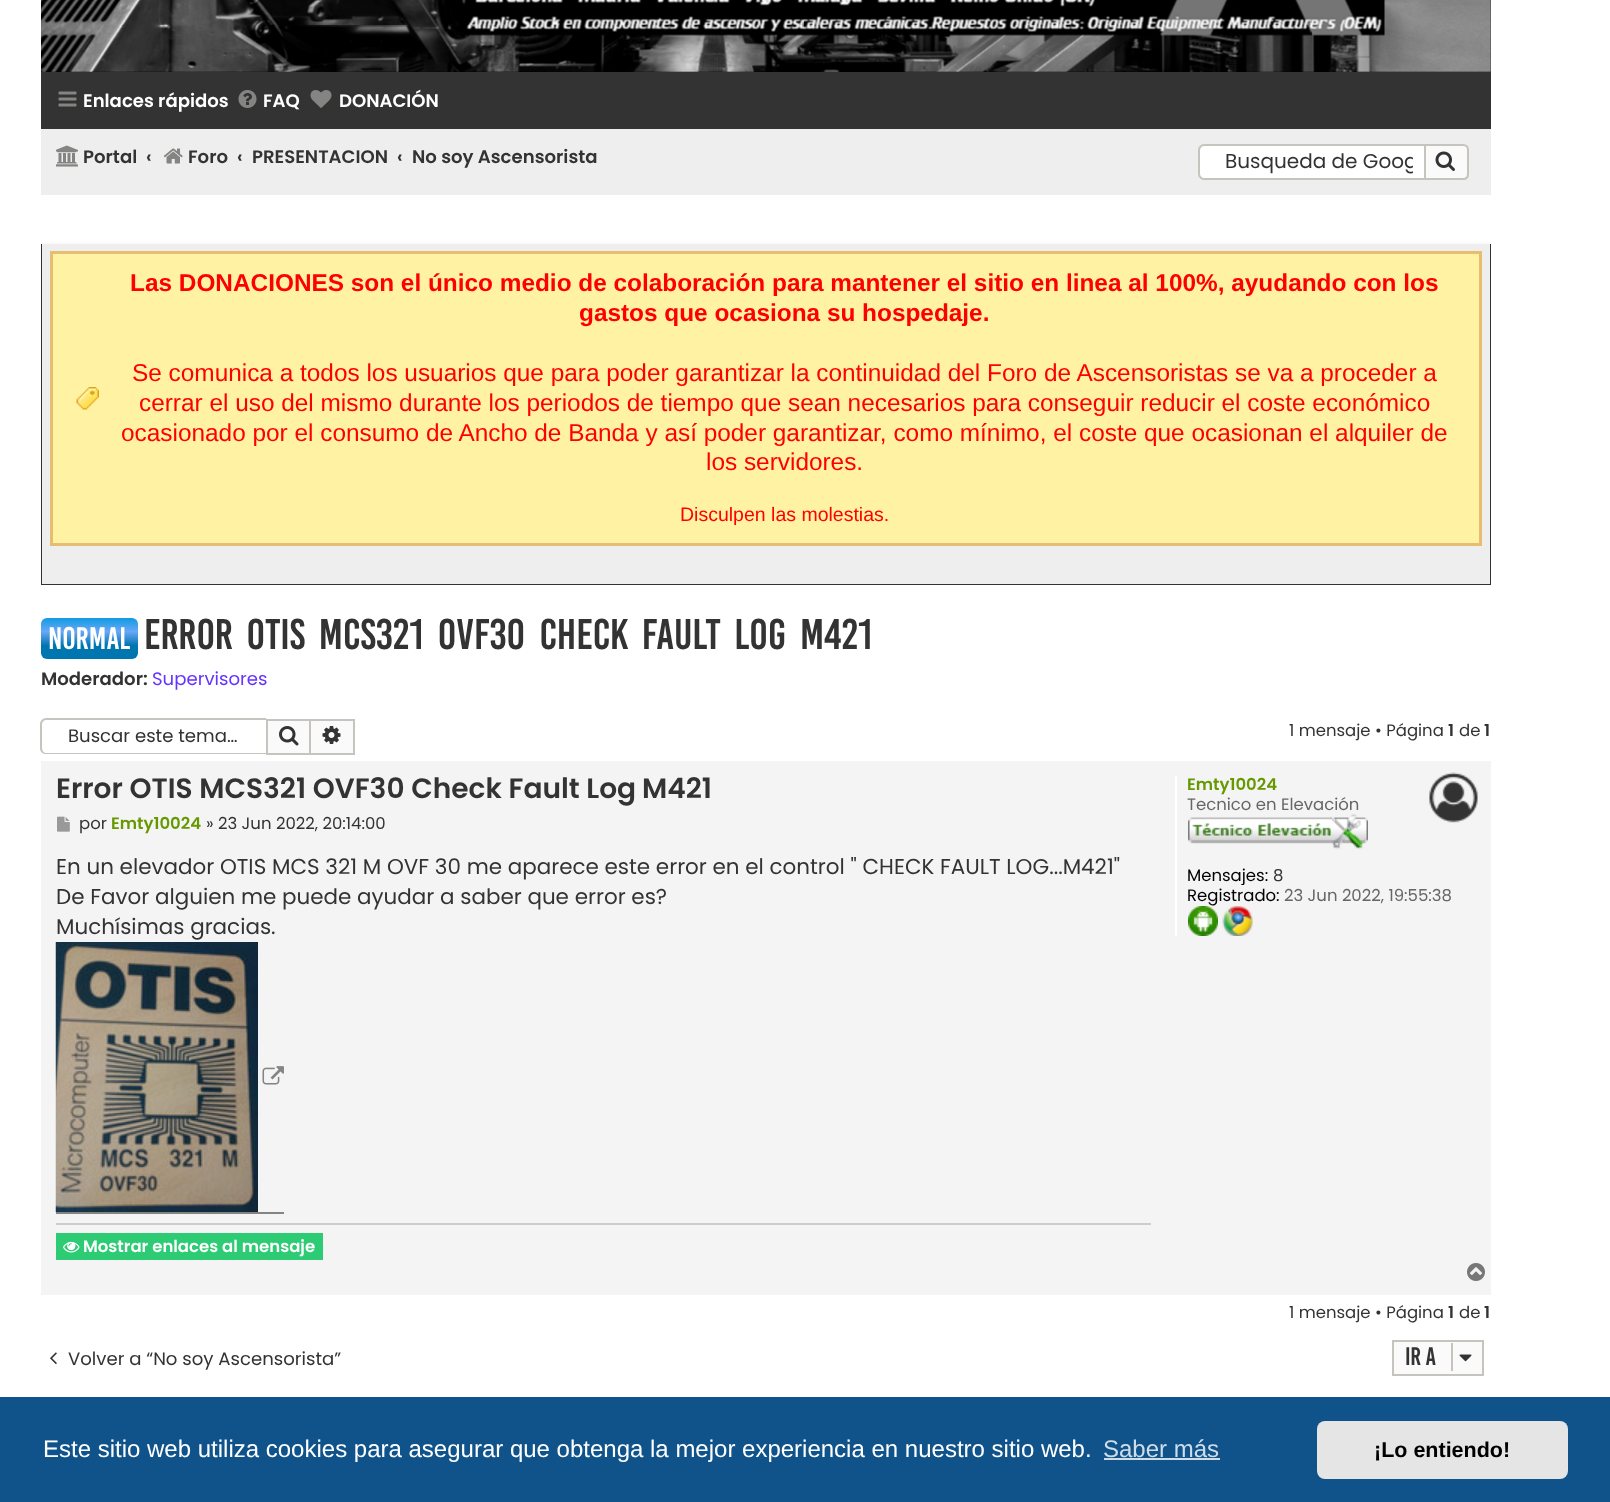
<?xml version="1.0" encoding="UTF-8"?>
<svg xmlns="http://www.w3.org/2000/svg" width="1610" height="1502">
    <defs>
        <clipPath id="clip1"><rect x="1226" y="147" width="187" height="30"/></clipPath>
        <linearGradient id="g1" gradientUnits="userSpaceOnUse" x1="89" y1="618" x2="89" y2="659"><stop offset="0" stop-color="#0F9BE1"/><stop offset="0.33" stop-color="#6AA7F7"/><stop offset="0.67" stop-color="#0076B1"/><stop offset="1" stop-color="#0076B1"/></linearGradient>
        <clipPath id="clip2"><rect x="1188" y="866" width="288" height="19"/></clipPath>
    </defs>
    <rect width="100%" height="100%" fill="#FFFFFF"/>
    <rect x="41" y="0" width="1450" height="72" fill="#000000"/>
    <image x="41" y="0" width="1450" height="72" href="img_01.png"/>
    <rect x="41" y="72" width="1450" height="57" fill="#333333"/>
    <image x="58" y="91" width="19" height="16" href="img_02.png"/>
    <text x="83" y="107" font-family="Poppins" font-size="18.1" font-weight="600" fill="#FFFFFF">Enlaces rápidos</text>
    <image x="238" y="90" width="19" height="18" href="img_03.png"/>
    <text x="263" y="107" font-family="Poppins" font-size="18.1" font-weight="600" fill="#FFFFFF">FAQ</text>
    <image x="310" y="90" width="22" height="18" href="img_04.png"/>
    <text x="339" y="107" font-family="Poppins" font-size="18.1" font-weight="600" fill="#FFFFFF">DONACIÓN</text>
    <rect x="41" y="129" width="1450" height="66" fill="#EEEEEE"/>
    <image x="56" y="145" width="22" height="22" href="img_05.png"/>
    <text x="83" y="163" font-family="Poppins" font-size="18.1" font-weight="600" fill="#333333">Portal</text>
    <text x="146" y="163" font-family="Poppins" font-size="18.1" font-weight="600" fill="#333333">‹</text>
    <image x="163" y="148" width="20" height="16" href="img_06.png"/>
    <text x="188" y="163" font-family="Poppins" font-size="18.1" font-weight="600" fill="#333333">Foro</text>
    <text x="237" y="163" font-family="Poppins" font-size="18.1" font-weight="600" fill="#333333">‹</text>
    <text x="252" y="163" font-family="Poppins" font-size="18.1" font-weight="600" fill="#333333">PRESENTACION</text>
    <text x="397" y="163" font-family="Poppins" font-size="18.1" font-weight="600" fill="#333333">‹</text>
    <text x="412" y="163" font-family="Poppins" font-size="18.1" font-weight="600" fill="#333333">No soy Ascensorista</text>
    <path d="M 1205 146 H 1424 V 179 H 1205 C 1202 179 1200 177 1200 174 V 151 C 1200 148 1202 146 1205 146 Z" fill="#FFFFFF"/>
    <path d="M 1204 144 H 1424 V 180 H 1204 C 1201 180 1198 177 1198 174 V 150 C 1198 147 1201 144 1204 144 Z M 1204 146 H 1424 V 178 H 1204 C 1202 178 1200 176 1200 174 V 150 C 1200 148 1202 146 1204 146 Z" fill="#C7C3BF" fill-rule="evenodd"/>
    <g clip-path="url(#clip1)">
        <text x="1225" y="168" font-family="Poppins" font-size="20" fill="#333333">Busqueda de Goog</text>
    </g>
    <path d="M 1425 145 H 1463 C 1466 145 1468 147 1468 150 V 174 C 1468 177 1466 179 1463 179 H 1425 Z" fill="#FAFAFA" stroke="#C7C3BF" stroke-width="2"/>
    <image x="1435" y="151" width="20" height="20" href="img_07.png"/>
    <rect x="41" y="244" width="1450" height="341" fill="#333333"/>
    <rect x="42" y="244" width="1448" height="340" fill="#EEEEEE"/>
    <rect x="41" y="242" width="1450" height="2" fill="#FAFAFA"/>
    <rect x="53" y="254" width="1426" height="289" fill="#FFF3A3"/>
    <image x="76" y="387" width="23" height="23" href="img_08.png"/>
    <rect x="51.5" y="252.5" width="1429" height="292" fill="none" stroke="#E7BD72" stroke-width="3"/>
    <text x="130" y="291" font-family="Liberation Sans" font-size="24.38" font-weight="700" fill="#FF0000">Las DONACIONES son el único medio de colaboración para mantener el sitio en linea al 100%, ayudando con los</text>
    <text x="579" y="321" font-family="Liberation Sans" font-size="24.38" font-weight="700" fill="#FF0000">gastos que ocasiona su hospedaje.</text>
    <text x="132" y="381" font-family="Liberation Sans" font-size="24.38" fill="#FF0000">Se comunica a todos los usuarios que para poder garantizar la continuidad del Foro de Ascensoristas se va a proceder a</text>
    <text x="139" y="411" font-family="Liberation Sans" font-size="24.38" fill="#FF0000">cerrar el uso del mismo durante los periodos de tiempo que sean necesarios para conseguir reducir el coste económico</text>
    <text x="121" y="441" font-family="Liberation Sans" font-size="24.38" fill="#FF0000">ocasionado por el consumo de Ancho de Banda y así poder garantizar, como mínimo, el coste que ocasionan el alquiler de</text>
    <text x="706" y="470" font-family="Liberation Sans" font-size="24.38" fill="#FF0000">los servidores.</text>
    <text x="680" y="521" font-family="Liberation Sans" font-size="19.5" fill="#FF0000">Disculpen las molestias.</text>
    <rect x="41" y="618" width="97" height="41" rx="6" fill="url(#g1)"/>
    <text x="48" y="649" font-family="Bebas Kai" font-size="24" fill="#FFFFFF">Normal</text>
    <text x="144" y="649" word-spacing="6" font-family="Bebas Kai" font-size="33" fill="#333333">Error OTIS MCS321 OVF30 Check Fault Log</text>
    <text x="800" y="649" font-family="Bebas Kai" font-size="33" fill="#333333">M421</text>
    <text x="41" y="685" font-family="Poppins" font-size="18.1" font-weight="600" fill="#333333">Moderador:</text>
    <text x="152" y="685" font-family="Poppins" font-size="18.1" fill="#6633FF">Supervisores</text>
    <path d="M 46 718 H 266 V 754 H 46 C 43 754 40 752 40 748 V 724 C 40 721 43 718 46 718 Z M 46 720 H 266 V 753 H 46 C 44 753 42 751 42 748 V 724 C 42 722 44 720 46 720 Z" fill="#C7C3BF" fill-rule="evenodd"/>
    <text x="68" y="742" font-family="Poppins" font-size="18.1" fill="#333333">Buscar este tema…</text>
    <rect x="267" y="720" width="43" height="34" fill="#FAFAFA" stroke="#C7C3BF" stroke-width="2"/>
    <image x="279" y="726" width="20" height="20" href="img_09.png"/>
    <rect x="311" y="721" width="42" height="32" fill="#FAFAFA"/>
    <rect x="311" y="719" width="43" height="2" fill="#C7C3BF"/>
    <rect x="353" y="719" width="2" height="36" fill="#C7C3BF"/>
    <rect x="311" y="753" width="43" height="2" fill="#C7C3BF"/>
    <image x="322" y="726" width="19" height="18" href="img_10.png"/>
    <text x="1289" y="736" font-family="Poppins" font-size="16.5" fill="#333333">1 mensaje • Página</text>
    <text x="1448" y="736" font-family="Poppins" font-size="16.5" font-weight="600" fill="#333333">1</text>
    <text x="1459" y="736" font-family="Poppins" font-size="16.5" fill="#333333">de</text>
    <text x="1484" y="736" font-family="Poppins" font-size="16.5" font-weight="600" fill="#333333">1</text>
    <rect x="41" y="761" width="1450" height="534" fill="#F4F4F4"/>
    <image x="1429" y="772" width="49" height="51" href="img_11.png"/>
    <text x="56" y="798" font-family="Poppins" font-size="28.05" font-weight="600" fill="#333333">Error OTIS MCS321 OVF30 Check Fault Log</text>
    <text x="642" y="798" font-family="Poppins" font-size="28.05" font-weight="600" fill="#333333">M421</text>
    <image x="57" y="816" width="13" height="16" href="img_12.png"/>
    <text x="79" y="829" font-family="Poppins" font-size="16.5" fill="#333333">por</text>
    <text x="111" y="829" font-family="Poppins" font-size="16.5" font-weight="600" fill="#669900">Emty10024</text>
    <text x="206" y="829" font-family="Poppins" font-size="16.5" fill="#333333">» 23 Jun 2022, 20:14:00</text>
    <text font-family="Poppins" font-size="21.45" fill="#333333">
        <tspan x="56" y="874">En un elevador OTIS MCS 321 M OVF 30 me aparece este error en el control " CHECK FAULT LOG...M421"</tspan>
        <tspan x="56" y="904">De Favor alguien me puede ayudar a saber que error es?</tspan>
        <tspan x="56" y="934">Muchísimas gracias.</tspan>
    </text>
    <rect x="56" y="1212" width="228" height="2" fill="#848482"/>
    <image x="55" y="942" width="203" height="270" href="img_13.png"/>
    <image x="262" y="1066" width="22" height="19" href="img_14.png"/>
    <rect x="56" y="1223" width="1095" height="2" fill="#CCCCCC"/>
    <rect x="56" y="1233" width="267" height="27" fill="#2DCB73"/>
    <image x="63" y="1241" width="17" height="12" href="img_15.png"/>
    <text x="83" y="1252" font-family="Poppins" font-size="16.5" font-weight="600" fill="#FFFFFF">Mostrar enlaces al mensaje</text>
    <rect x="1175" y="776" width="2" height="160" fill="#FFFFFF"/>
    <text x="1187" y="790" font-family="Poppins" font-size="16.5" font-weight="600" fill="#669900">Emty10024</text>
    <text x="1187" y="810" font-family="Poppins" font-size="16.5" fill="#666666">Tecnico en Elevación</text>
    <image x="1188" y="814" width="180" height="36" href="img_16.png"/>
    <g clip-path="url(#clip2)">
        <text x="1187" y="881" font-family="Poppins" font-size="16.5" fill="#000000">Mensajes:</text>
    </g>
    <text x="1273" y="881" font-family="Poppins" font-size="16.5" fill="#333333">8</text>
    <text x="1187" y="901" font-family="Poppins" font-size="16.5" fill="#000000">Registrado:</text>
    <text x="1284" y="901" font-family="Poppins" font-size="16.5" fill="#666666">23 Jun 2022, 19:55:38</text>
    <image x="1188" y="906" width="30" height="30" href="img_17.png"/>
    <image x="1222" y="906" width="31" height="30" href="img_18.png"/>
    <image x="1467" y="1263" width="18" height="18" href="img_19.png"/>
    <text x="1289" y="1318" font-family="Poppins" font-size="16.5" fill="#333333">1 mensaje • Página</text>
    <text x="1448" y="1318" font-family="Poppins" font-size="16.5" font-weight="600" fill="#333333">1</text>
    <text x="1459" y="1318" font-family="Poppins" font-size="16.5" fill="#333333">de</text>
    <text x="1484" y="1318" font-family="Poppins" font-size="16.5" font-weight="600" fill="#333333">1</text>
    <image x="50" y="1352" width="7" height="12" href="img_20.png"/>
    <text x="68" y="1365" font-family="Poppins" font-size="18.1" fill="#333333">Volver a “No soy Ascensorista”</text>
    <rect x="1393" y="1341" width="90" height="34" fill="#FAFAFA" stroke="#C7C3BF" stroke-width="2"/>
    <text x="1405" y="1365" font-family="Bebas Kai" font-size="19.5" fill="#333333">Ir a</text>
    <rect x="1451" y="1343" width="2" height="28" fill="#C7C3BF"/>
    <image x="1459" y="1354" width="13" height="8" href="img_21.png"/>
    <rect x="0" y="1397" width="1610" height="105" fill="#0F538A"/>
    <text x="43" y="1457" font-family="Liberation Sans" font-size="24" fill="#FFFFFF">Este sitio web utiliza cookies para asegurar que obtenga la mejor experiencia en nuestro sitio web.</text>
    <text x="1103" y="1457" font-family="Liberation Sans" font-size="24" fill="#CFDDE8">Saber más</text>
    <rect x="1104" y="1458" width="116" height="2" fill="#CFDDE8"/>
    <rect x="1317" y="1421" width="251" height="58" rx="8" fill="#E5E5E5"/>
    <text x="1374" y="1457" font-family="Liberation Sans" font-size="21.5" font-weight="700" fill="#000000">¡Lo entiendo!</text>
</svg>
